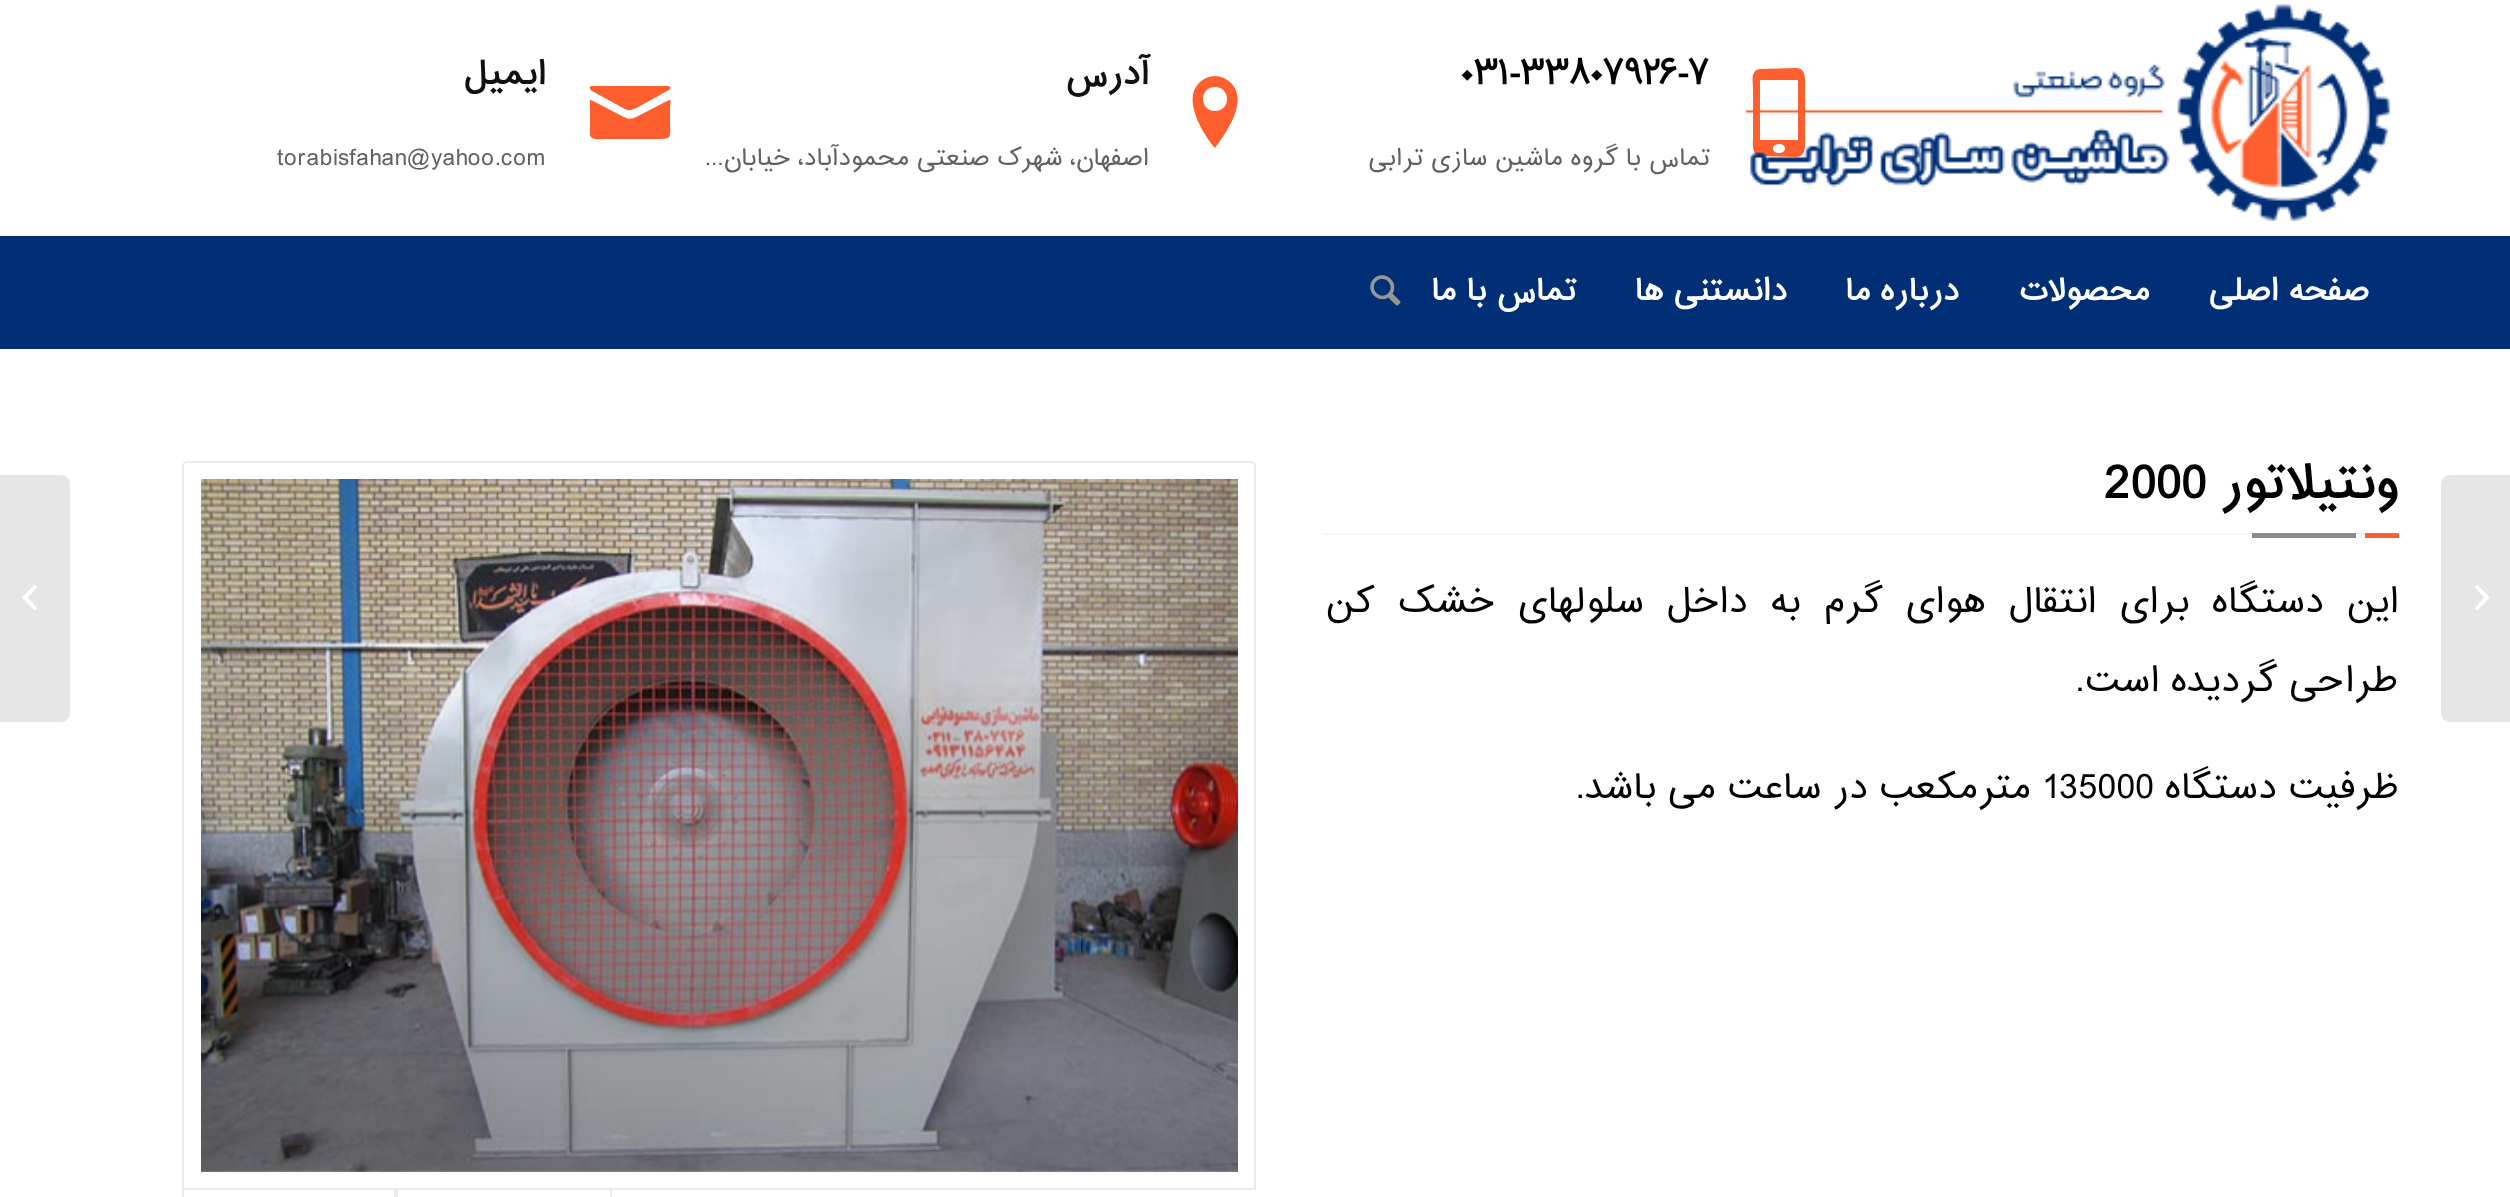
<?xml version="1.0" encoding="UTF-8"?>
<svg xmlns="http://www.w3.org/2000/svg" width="2510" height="1197">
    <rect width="100%" height="100%" fill="#FFFFFF"/>
    <path d="M 1796 68 C 1807 68 1805 82 1805 89 V 136 C 1805 143 1807 157 1796 157 L 1760 156 C 1751 155 1753 142 1753 136 V 89 C 1753 82 1750 70 1760 69 Z M 1779 153 C 1787 153 1787 144 1779 144 C 1771 144 1771 153 1779 153 Z M 1798 140 V 80 H 1760 V 140 Z" fill="#FF5F2E"/>
    <image x="1745" y="4" width="646" height="218" href="img_01.png"/>
    <text x="1461" y="84" font-family="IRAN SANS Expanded" font-size="31.5" font-weight="700" fill="#000000">۰۳۱-۳۳۸۰۷۹۲۶-۷</text>
    <text x="1710" y="165" font-family="IRAN SANS Expanded" font-size="22.5" direction="rtl" fill="#616161">تماس با گروه ماشین سازی ترابی</text>
    <path d="M 1215 76 C 1221 76 1227 79 1231 83 C 1249 101 1226 133 1215 148 C 1203 134 1182 100 1199 83 C 1203 79 1209 76 1215 76 Z M 1215 111 C 1231 111 1231 87 1215 87 C 1199 87 1199 111 1215 111 Z" fill="#FF5F2E"/>
    <text x="1149" y="84" font-family="IRAN SANS Expanded" font-size="31.5" font-weight="700" direction="rtl" fill="#111111">آدرس</text>
    <text x="1149" y="165" font-family="IRAN SANS Expanded" font-size="22.5" direction="rtl" fill="#616161">اصفهان، شهرک صنعتی محمودآباد، خیابان...</text>
    <path d="M 592 91 C 590 90 588 86 592 86 H 668 C 671 86 671 89 669 90 L 640 106 C 632 110 630 112 623 108 Z M 669 100 C 672 99 670 106 670 107 V 118 C 670 139 674 139 654 139 H 606 C 604 139 591 141 590 135 V 107 C 590 98 588 99 597 103 L 620 115 C 630 120 630 120 640 115 Z" fill="#FF5F2E"/>
    <text x="546" y="84" font-family="IRAN SANS Expanded" font-size="31.5" font-weight="700" direction="rtl" fill="#111111">ایمیل</text>
    <text x="277" y="165" font-family="IRAN SANS Expanded" font-size="22.5" fill="#616161">torabisfahan@yahoo.com</text>
    <rect x="0" y="236" width="2510" height="113" fill="#002F76"/>
    <text x="2369" y="300" font-family="IRAN SANS Expanded" font-size="29.25" font-weight="700" direction="rtl" fill="#FFFFFF">صفحه اصلی</text>
    <text x="2150" y="300" font-family="IRAN SANS Expanded" font-size="29.25" font-weight="700" direction="rtl" fill="#FFFFFF">محصولات</text>
    <text x="1959" y="300" font-family="IRAN SANS Expanded" font-size="29.25" font-weight="700" direction="rtl" fill="#FFFFFF">درباره ما</text>
    <text x="1787" y="300" font-family="IRAN SANS Expanded" font-size="29.25" font-weight="700" direction="rtl" fill="#FFFFFF">دانستنی ها</text>
    <text x="1576" y="300" font-family="IRAN SANS Expanded" font-size="29.25" font-weight="700" direction="rtl" fill="#FFFFFF">تماس با ما</text>
    <image x="1370" y="275" width="31" height="31" href="img_02.png"/>
    <path d="M 2450 475 H 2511 V 722 H 2450 C 2445 722 2441 718 2441 713 V 484 C 2441 479 2445 475 2450 475 Z" fill="#E6E6E6"/>
    <image x="2475" y="585" width="15" height="25" href="img_03.png"/>
    <rect x="1323" y="533" width="1042" height="2" fill="#F5F5F5"/>
    <text x="2398" y="498" font-family="IRAN SANS Expanded" font-size="45" font-weight="700" direction="rtl" fill="#000000">ونتیلاتور</text>
    <text x="2104" y="498" font-family="IRAN SANS Expanded" font-size="45" font-weight="700" fill="#000000">2000</text>
    <rect x="2365" y="533" width="34" height="5" fill="#FF5F2E"/>
    <rect x="2252" y="533" width="104" height="5" fill="#8B8B8B"/>
    <text x="2399" y="612" word-spacing="11.25" font-family="IRAN SANS Expanded" font-size="33.75" direction="rtl" fill="#000000">این دستگاه برای انتقال هوای گرم به داخل سلولهای خشک کن</text>
    <text x="2398" y="691" font-family="IRAN SANS Expanded" font-size="33.75" direction="rtl" fill="#000000">طراحی گردیده است.</text>
    <text x="2398" y="798" font-family="IRAN SANS Expanded" font-size="33.75" direction="rtl" fill="#000000">ظرفیت دستگاه</text>
    <text x="2042" y="798" font-family="IRAN SANS Expanded" font-size="33.75" fill="#000000">135000</text>
    <text x="2031" y="798" font-family="IRAN SANS Expanded" font-size="33.75" direction="rtl" fill="#000000">مترمکعب در ساعت می باشد.</text>
    <rect x="397" y="1189" width="214" height="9" fill="none" stroke="#EBEBEB" stroke-width="2"/>
    <rect x="183" y="1189" width="212" height="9" fill="none" stroke="#EBEBEB" stroke-width="2"/>
    <path d="M 187 462 H 1251 C 1253 462 1255 464 1255 466 V 1189 H 183 V 466 C 183 464 185 462 187 462 Z" fill="#FFFFFF" stroke="#EBEBEB" stroke-width="2"/>
    <image x="201" y="479" width="1037" height="693" href="img_04.png"/>
    <path d="M 0 475 H 61 C 66 475 70 479 70 484 V 713 C 70 718 66 722 61 722 H 0 Z" fill="#E6E6E6"/>
    <image x="22" y="585" width="15" height="25" href="img_05.png"/>
</svg>
